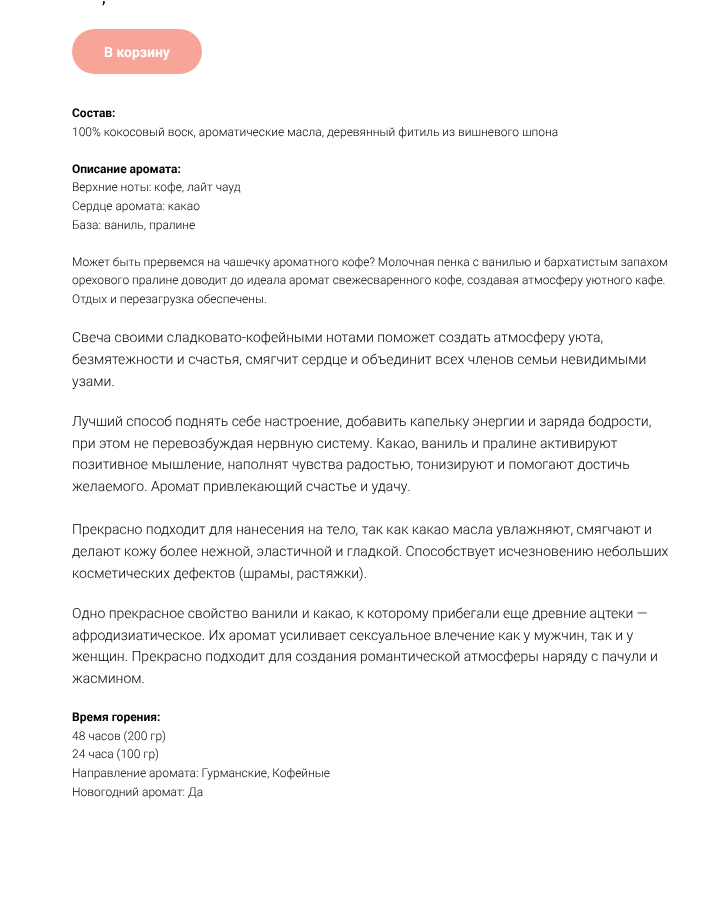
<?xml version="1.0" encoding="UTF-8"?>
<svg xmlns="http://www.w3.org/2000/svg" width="724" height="912">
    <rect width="100%" height="100%" fill="#FFFFFF"/>
    <text x="102" y="3" font-family="Roboto" font-size="18" fill="#000000">,</text>
    <rect x="72" y="29" width="130" height="45" rx="22.5" fill="#F7A598"/>
    <text x="104" y="57" font-family="Roboto" font-size="14" font-weight="700" fill="#FFFFFF">В корзину</text>
    <text x="72" y="117" font-family="Roboto" font-size="12" font-weight="700" fill="#000000">Состав:</text>
    <text x="72" y="136" font-family="Roboto" font-size="12" font-weight="300" fill="#000000">100% кокосовый воск, ароматические масла, деревянный фитиль из вишневого шпона</text>
    <text x="72" y="173" font-family="Roboto" font-size="12" font-weight="700" fill="#000000">Описание аромата:</text>
    <text font-family="Roboto" font-size="12" font-weight="300" fill="#000000">
        <tspan x="72" y="191">Верхние ноты: кофе, лайт чауд</tspan>
        <tspan x="72" y="210">Сердце аромата: какао</tspan>
        <tspan x="72" y="229">База: ваниль, пралине</tspan>
    </text>
    <text font-family="Roboto" font-size="12" font-weight="300" fill="#000000">
        <tspan x="72" y="266">Может быть прервемся на чашечку ароматного кофе? Молочная пенка с ванилью и бархатистым запахом</tspan>
        <tspan x="72" y="284">орехового пралине доводит до идеала аромат свежесваренного кофе, создавая атмосферу уютного кафе.</tspan>
        <tspan x="72" y="303">Отдых и перезагрузка обеспечены.</tspan>
    </text>
    <text font-family="Roboto" font-size="14" font-weight="300" fill="#000000">
        <tspan x="72" y="342">Свеча своими сладковато-кофейными нотами поможет создать атмосферу уюта,</tspan>
        <tspan x="72" y="364">безмятежности и счастья, смягчит сердце и объединит всех членов семьи невидимыми</tspan>
        <tspan x="72" y="386">узами.</tspan>
    </text>
    <text font-family="Roboto" font-size="14" font-weight="300" fill="#000000">
        <tspan x="72" y="426">Лучший способ поднять себе настроение, добавить капельку энергии и заряда бодрости,</tspan>
        <tspan x="72" y="448">при этом не перевозбуждая нервную систему. Какао, ваниль и пралине активируют</tspan>
        <tspan x="72" y="469">позитивное мышление, наполнят чувства радостью, тонизируют и помогают достичь</tspan>
        <tspan x="72" y="491">желаемого. Аромат привлекающий счастье и удачу.</tspan>
    </text>
    <text font-family="Roboto" font-size="14" font-weight="300" fill="#000000">
        <tspan x="72" y="534">Прекрасно подходит для нанесения на тело, так как какао масла увлажняют, смягчают и</tspan>
        <tspan x="72" y="556">делают кожу более нежной, эластичной и гладкой. Способствует исчезновению небольших</tspan>
        <tspan x="72" y="578">косметических дефектов (шрамы, растяжки).</tspan>
    </text>
    <text font-family="Roboto" font-size="14" font-weight="300" fill="#000000">
        <tspan x="72" y="618">Одно прекрасное свойство ванили и какао, к которому прибегали еще древние ацтеки —</tspan>
        <tspan x="72" y="640">афродизиатическое. Их аромат усиливает сексуальное влечение как у мужчин, так и у</tspan>
        <tspan x="72" y="661">женщин. Прекрасно подходит для создания романтической атмосферы наряду с пачули и</tspan>
        <tspan x="72" y="683">жасмином.</tspan>
    </text>
    <text x="72" y="721" font-family="Roboto" font-size="12" font-weight="700" fill="#000000">Время горения:</text>
    <text font-family="Roboto" font-size="12" font-weight="300" fill="#000000">
        <tspan x="72" y="740">48 часов (200 гр)</tspan>
        <tspan x="72" y="758">24 часа (100 гр)</tspan>
        <tspan x="72" y="777">Направление аромата: Гурманские, Кофейные</tspan>
        <tspan x="72" y="796">Новогодний аромат: Да</tspan>
    </text>
</svg>
